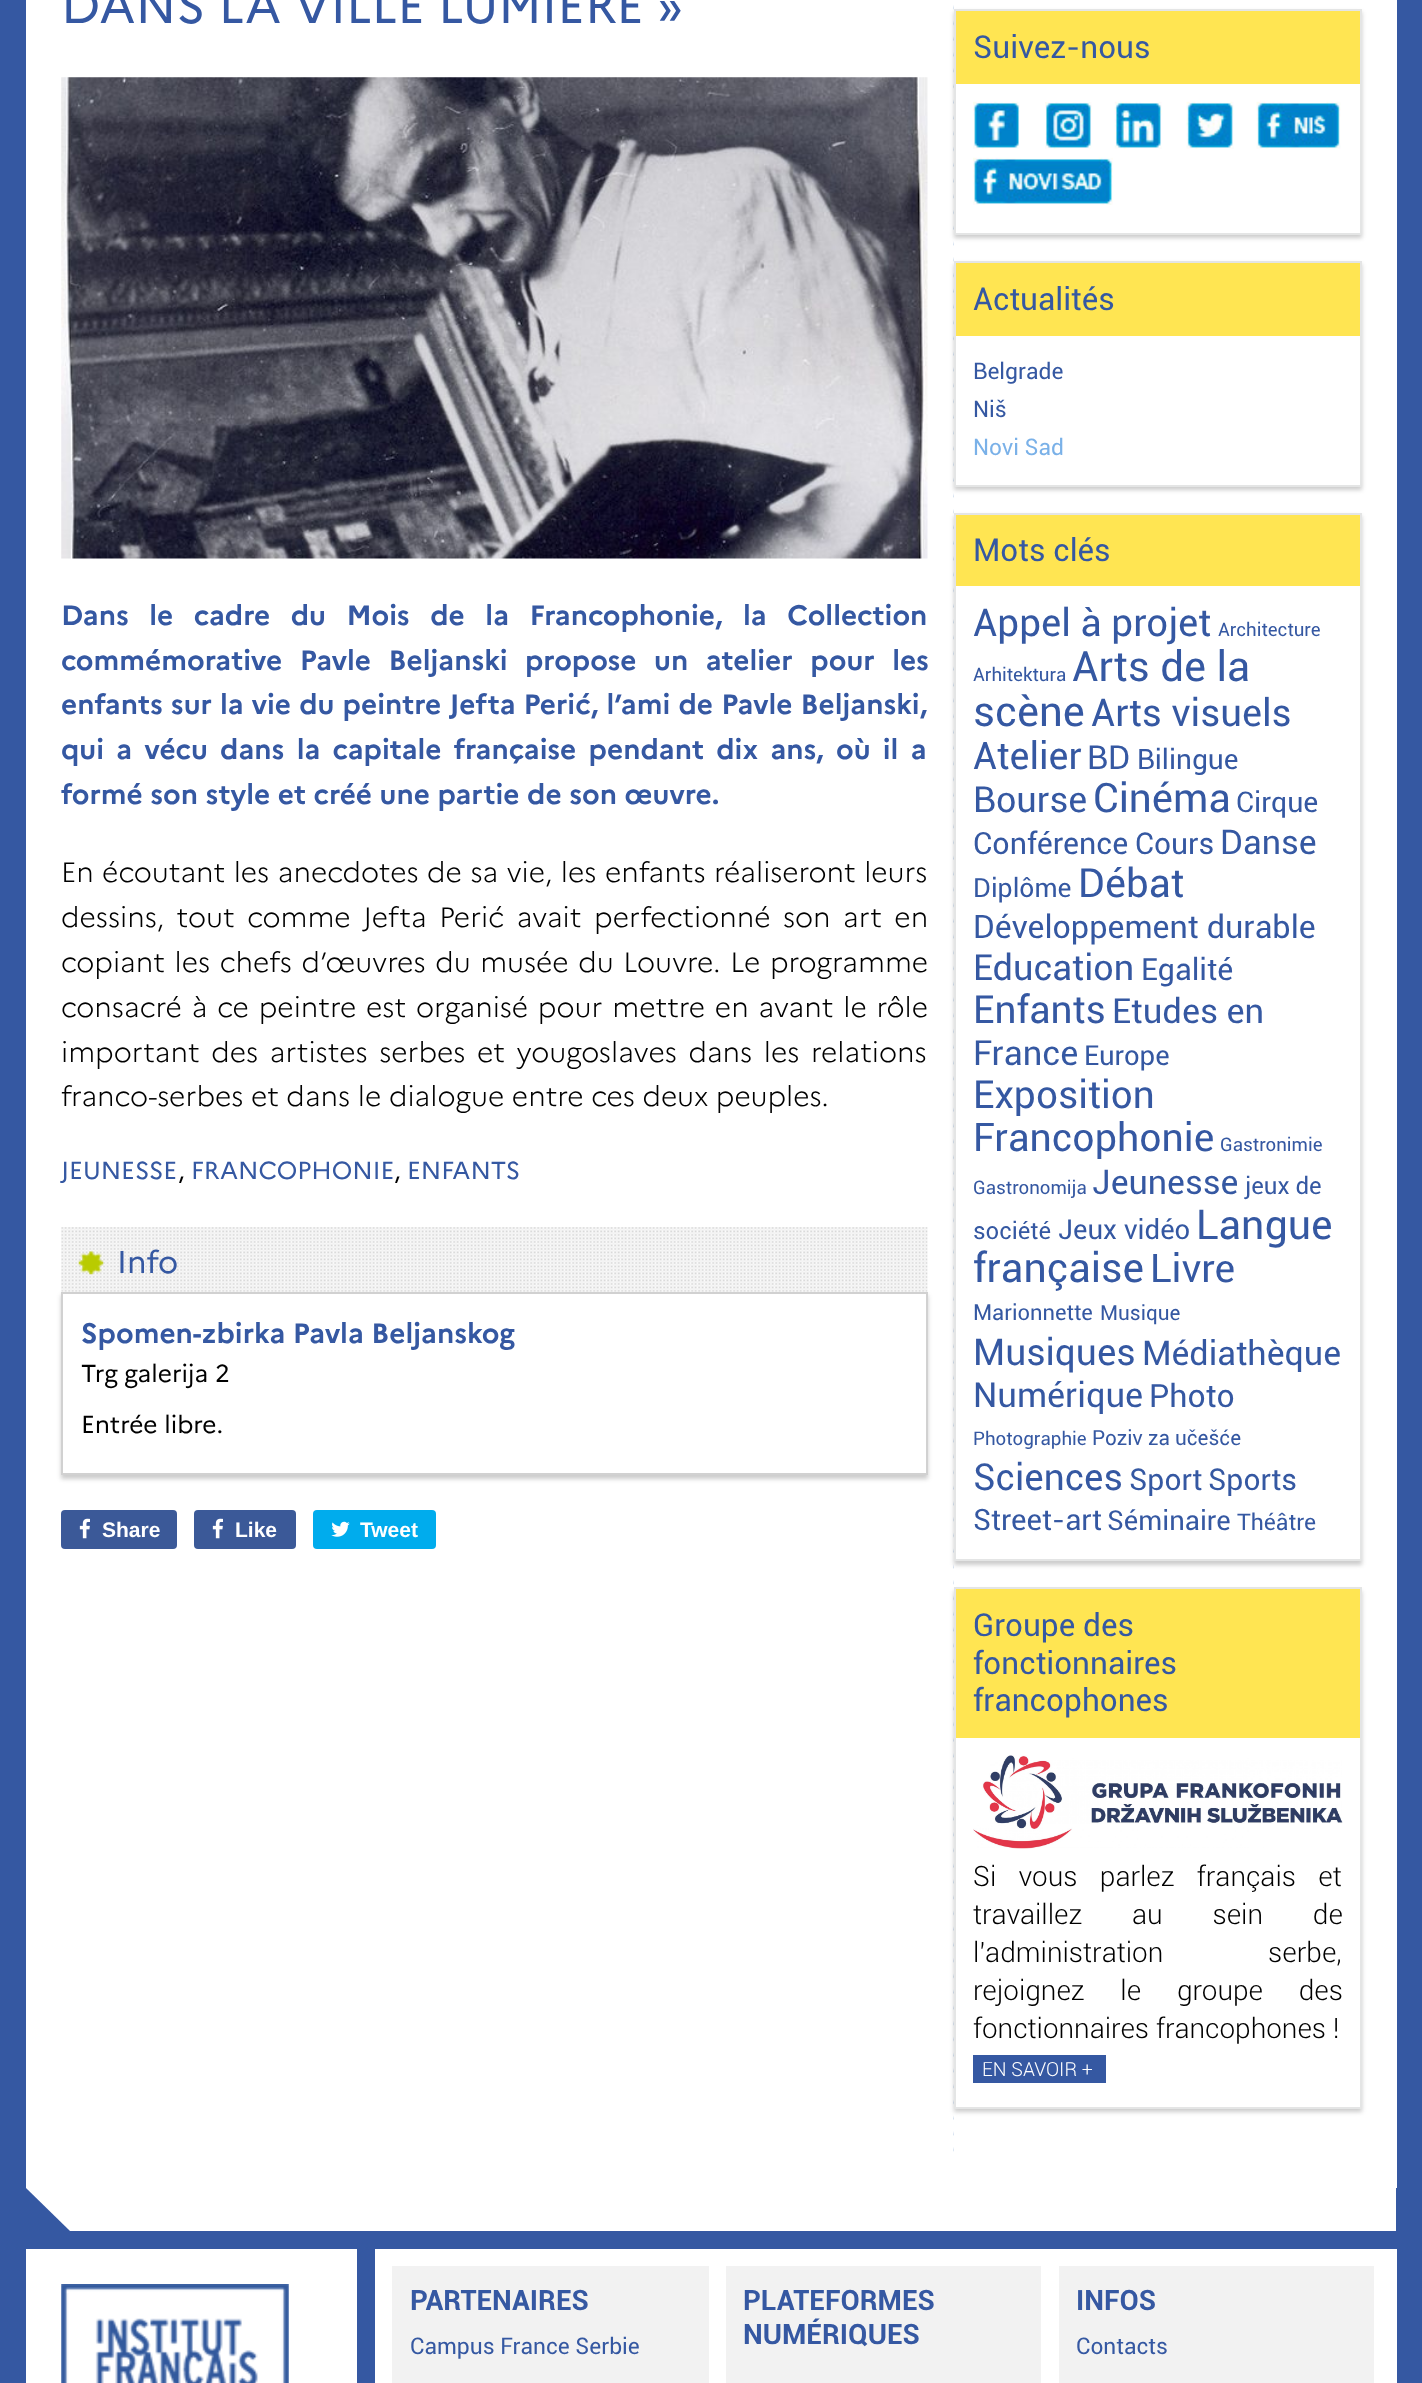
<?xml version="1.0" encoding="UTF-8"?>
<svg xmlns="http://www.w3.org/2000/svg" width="1422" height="2383">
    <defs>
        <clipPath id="clip1"><path d="M 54 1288 H 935 V 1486 H 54 Z M 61 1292 H 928 V 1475 H 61 Z" clip-rule="evenodd"/></clipPath>
        <filter id="blur1" x="-50%" y="-200%" width="200%" height="500%"><feGaussianBlur stdDeviation="2"/></filter>
        <clipPath id="clip2"><path d="M 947 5 H 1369 V 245 H 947 Z M 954 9 H 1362 V 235 H 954 Z" clip-rule="evenodd"/></clipPath>
        <clipPath id="clip3"><path d="M 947 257 H 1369 V 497 H 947 Z M 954 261 H 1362 V 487 H 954 Z" clip-rule="evenodd"/></clipPath>
        <clipPath id="clip4"><path d="M 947 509 H 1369 V 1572 H 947 Z M 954 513 H 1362 V 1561 H 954 Z" clip-rule="evenodd"/></clipPath>
        <clipPath id="clip5"><path d="M 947 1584 H 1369 V 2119 H 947 Z M 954 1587 H 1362 V 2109 H 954 Z" clip-rule="evenodd"/></clipPath>
    </defs>
    <rect width="100%" height="100%" fill="#3558A2"/>
    <rect x="26" y="0" width="1371" height="2188" fill="#FFFFFF"/>
    <text x="61" y="23" font-family="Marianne" font-size="49" fill="#3558A2">DANS LA VILLE LUMIÈRE »</text>
    <image x="61" y="77" width="867" height="482" href="img_01.png"/>
    <text x="61" y="625" word-spacing="13" font-family="Marianne" font-size="28" font-weight="700" fill="#3558A2">Dans le cadre du Mois de la Francophonie,</text>
    <text x="743" y="625" word-spacing="13" font-family="Marianne" font-size="28" font-weight="700" fill="#3558A2">la Collection</text>
    <text x="61" y="670" word-spacing="10" font-family="Marianne" font-size="28" font-weight="700" fill="#3558A2">commémorative Pavle Beljanski</text>
    <text x="525" y="670" word-spacing="10" font-family="Marianne" font-size="28" font-weight="700" fill="#3558A2">propose un atelier pour les</text>
    <text font-family="Marianne" font-size="28" font-weight="700" fill="#3558A2">
        <tspan x="61" y="714" word-spacing="0.6">enfants sur la vie du peintre Jefta Perić, l’ami de Pavle Beljanski,</tspan>
        <tspan x="61" y="759" word-spacing="4.75">qui a vécu dans la capitale française pendant dix ans, où il a</tspan>
        <tspan x="61" y="804">formé son style et créé une partie de son œuvre.</tspan>
    </text>
    <text font-family="Marianne" font-size="28" font-weight="300" fill="#000000">
        <tspan x="61" y="882" word-spacing="0.9">En écoutant les anecdotes de sa vie, les enfants réaliseront leurs</tspan>
        <tspan x="61" y="927" word-spacing="5">dessins, tout comme Jefta Perić avait perfectionné son art en</tspan>
        <tspan x="61" y="972" word-spacing="2">copiant les chefs d’œuvres du musée du Louvre. Le programme</tspan>
        <tspan x="61" y="1017" word-spacing="2.25">consacré à ce peintre est organisé pour mettre en avant le rôle</tspan>
        <tspan x="61" y="1062" word-spacing="4">important des artistes serbes et yougoslaves dans les relations</tspan>
        <tspan x="61" y="1106">franco-serbes et dans le dialogue entre ces deux peuples.</tspan>
    </text>
    <text x="61" y="1179" font-family="Marianne" font-size="24.5" fill="#3558A2">JEUNESSE</text>
    <text x="178" y="1179" font-family="Marianne" font-size="24.5" fill="#000000">,</text>
    <text x="191" y="1179" font-family="Marianne" font-size="24.5" fill="#3558A2">FRANCOPHONIE</text>
    <text x="394" y="1179" font-family="Marianne" font-size="24.5" fill="#000000">,</text>
    <text x="407" y="1179" font-family="Marianne" font-size="24.5" fill="#3558A2">ENFANTS</text>
    <image x="61" y="1227" width="867" height="65" href="img_02.png"/>
    <image x="78" y="1251" width="26" height="24" href="img_03.png"/>
    <text x="117" y="1273" font-family="Marianne" font-size="31.5" fill="#3558A2">Info</text>
    <g clip-path="url(#clip1)">
        <rect x="61" y="1295" width="867" height="184" fill="#000000" fill-opacity="0.2" filter="url(#blur1)"/>
    </g>
    <rect x="62" y="1293" width="865" height="181" fill="none" stroke="#D1D1D1" stroke-width="2"/>
    <text x="81" y="1343" font-family="Marianne" font-size="28" font-weight="700" fill="#3558A2">Spomen-zbirka Pavla Beljanskog</text>
    <text x="81" y="1382" font-family="Marianne" font-size="24.5" fill="#000000">Trg galerija 2</text>
    <text x="81" y="1433" font-family="Marianne" font-size="24.5" fill="#000000">Entrée libre.</text>
    <rect x="61" y="1510" width="116" height="39" rx="4" fill="#3B5998"/>
    <image x="79" y="1518" width="11" height="21" href="img_04.png"/>
    <text x="102" y="1537" font-family="Liberation Sans" font-size="21" font-weight="700" fill="#FFFFFF">Share</text>
    <rect x="194" y="1510" width="102" height="39" rx="4" fill="#3B5998"/>
    <image x="212" y="1518" width="11" height="21" href="img_04.png"/>
    <text x="235" y="1537" font-family="Liberation Sans" font-size="21" font-weight="700" fill="#FFFFFF">Like</text>
    <rect x="313" y="1510" width="123" height="39" rx="4" fill="#00ACED"/>
    <image x="331" y="1521" width="19" height="16" href="img_05.png"/>
    <text x="360" y="1537" font-family="Liberation Sans" font-size="21" font-weight="700" fill="#FFFFFF">Tweet</text>
    <image x="953" y="5" width="1" height="2147" href="img_06.png"/>
    <g clip-path="url(#clip2)">
        <rect x="954" y="12" width="408" height="226" fill="#000000" fill-opacity="0.2" filter="url(#blur1)"/>
    </g>
    <rect x="955" y="10" width="406" height="224" fill="none" stroke="#E4E5E5" stroke-width="2"/>
    <rect x="956" y="11" width="404" height="73" fill="#FFE552"/>
    <text x="973" y="58" font-family="Roboto" font-size="31.5" fill="#3558A2">Suivez-nous</text>
    <image x="973" y="101" width="47" height="48" href="img_07.png"/>
    <image x="1045" y="102" width="47" height="47" href="img_08.png"/>
    <image x="1114" y="101" width="48" height="48" href="img_09.png"/>
    <image x="1186" y="101" width="48" height="48" href="img_10.png"/>
    <image x="1256" y="101" width="85" height="48" href="img_11.png"/>
    <image x="973" y="157" width="140" height="48" href="img_12.png"/>
    <g clip-path="url(#clip3)">
        <rect x="954" y="264" width="408" height="226" fill="#000000" fill-opacity="0.2" filter="url(#blur1)"/>
    </g>
    <rect x="955" y="262" width="406" height="224" fill="none" stroke="#E4E5E5" stroke-width="2"/>
    <rect x="956" y="263" width="404" height="73" fill="#FFE552"/>
    <text x="973" y="310" font-family="Roboto" font-size="31.5" fill="#3558A2">Actualités</text>
    <text font-family="Roboto" font-size="22.75" fill="#3558A2">
        <tspan x="973" y="379">Belgrade</tspan>
        <tspan x="973" y="417">Niš</tspan>
    </text>
    <text x="973" y="455" font-family="Roboto" font-size="22.75" fill="#7AB1E8">Novi Sad</text>
    <g clip-path="url(#clip4)">
        <rect x="954" y="516" width="408" height="1049" fill="#000000" fill-opacity="0.2" filter="url(#blur1)"/>
    </g>
    <rect x="955" y="514" width="406" height="1046" fill="none" stroke="#E4E5E5" stroke-width="2"/>
    <rect x="956" y="515" width="404" height="71" fill="#FFE552"/>
    <text x="973" y="561" font-family="Roboto" font-size="31.5" fill="#3558A2">Mots clés</text>
    <text x="973" y="636" font-family="Roboto" font-size="38.5" fill="#3558A2">Appel à projet</text>
    <text x="1218" y="636" font-family="Roboto" font-size="18.75" fill="#3558A2">Architecture</text>
    <text x="973" y="681" font-family="Roboto" font-size="18.75" fill="#3558A2">Arhitektura</text>
    <text x="1072" y="681" font-family="Roboto" font-size="42" fill="#3558A2">Arts de la</text>
    <text x="973" y="726" font-family="Roboto" font-size="42" fill="#3558A2">scène</text>
    <text x="1091" y="726" font-family="Roboto" font-size="38.25" fill="#3558A2">Arts visuels</text>
    <text x="973" y="769" font-family="Roboto" font-size="38" fill="#3558A2">Atelier</text>
    <text x="1087" y="769" font-family="Roboto" font-size="33" fill="#3558A2">BD</text>
    <text x="1137" y="769" font-family="Roboto" font-size="28" fill="#3558A2">Bilingue</text>
    <text x="973" y="812" font-family="Roboto" font-size="36" fill="#3558A2">Bourse</text>
    <text x="1093" y="812" font-family="Roboto" font-size="40.5" fill="#3558A2">Cinéma</text>
    <text x="1236" y="812" font-family="Roboto" font-size="28.5" fill="#3558A2">Cirque</text>
    <text x="973" y="854" font-family="Roboto" font-size="30.5" fill="#3558A2">Conférence</text>
    <text x="1135" y="854" font-family="Roboto" font-size="30" fill="#3558A2">Cours</text>
    <text x="1220" y="854" font-family="Roboto" font-size="34" fill="#3558A2">Danse</text>
    <text x="973" y="897" font-family="Roboto" font-size="26.5" fill="#3558A2">Diplôme</text>
    <text x="1078" y="897" font-family="Roboto" font-size="40" fill="#3558A2">Débat</text>
    <text x="973" y="938" font-family="Roboto" font-size="32.25" fill="#3558A2">Développement durable</text>
    <text x="973" y="980" font-family="Roboto" font-size="36" fill="#3558A2">Education</text>
    <text x="1141" y="980" font-family="Roboto" font-size="30.5" fill="#3558A2">Egalité</text>
    <text x="973" y="1023" font-family="Roboto" font-size="38.75" fill="#3558A2">Enfants</text>
    <text x="1112" y="1023" font-family="Roboto" font-size="34.5" fill="#3558A2">Etudes en</text>
    <text x="973" y="1065" font-family="Roboto" font-size="34.5" fill="#3558A2">France</text>
    <text x="1084" y="1065" font-family="Roboto" font-size="27.5" fill="#3558A2">Europe</text>
    <text x="973" y="1108" font-family="Roboto" font-size="38.75" fill="#3558A2">Exposition</text>
    <text x="973" y="1151" font-family="Roboto" font-size="39.25" fill="#3558A2">Francophonie</text>
    <text x="1220" y="1151" font-family="Roboto" font-size="18.75" fill="#3558A2">Gastronimie</text>
    <text x="973" y="1194" font-family="Roboto" font-size="18.75" fill="#3558A2">Gastronomija</text>
    <text x="1092" y="1194" font-family="Roboto" font-size="34" fill="#3558A2">Jeunesse</text>
    <text x="1245" y="1194" font-family="Roboto" font-size="24" fill="#3558A2">jeux de</text>
    <text x="973" y="1239" font-family="Roboto" font-size="24" fill="#3558A2">société</text>
    <text x="1058" y="1239" font-family="Roboto" font-size="27.5" fill="#3558A2">Jeux vidéo</text>
    <text x="1196" y="1239" font-family="Roboto" font-size="41" fill="#3558A2">Langue</text>
    <text x="973" y="1282" font-family="Roboto" font-size="41" fill="#3558A2">française</text>
    <text x="1150" y="1282" font-family="Roboto" font-size="39.25" fill="#3558A2">Livre</text>
    <text x="973" y="1320" font-family="Roboto" font-size="22" fill="#3558A2">Marionnette</text>
    <text x="1100" y="1320" font-family="Roboto" font-size="20.75" fill="#3558A2">Musique</text>
    <text x="973" y="1365" font-family="Roboto" font-size="37" fill="#3558A2">Musiques</text>
    <text x="1142" y="1365" font-family="Roboto" font-size="34" fill="#3558A2">Médiathèque</text>
    <text x="973" y="1407" font-family="Roboto" font-size="34.5" fill="#3558A2">Numérique</text>
    <text x="1149" y="1407" font-family="Roboto" font-size="32" fill="#3558A2">Photo</text>
    <text x="973" y="1445" font-family="Roboto" font-size="18.75" fill="#3558A2">Photographie</text>
    <text x="1092" y="1445" font-family="Roboto" font-size="20.75" fill="#3558A2">Poziv za učešće</text>
    <text x="973" y="1490" font-family="Roboto" font-size="37" fill="#3558A2">Sciences</text>
    <text x="1129" y="1490" font-family="Roboto" font-size="30" fill="#3558A2">Sport</text>
    <text x="1208" y="1490" font-family="Roboto" font-size="30" fill="#3558A2">Sports</text>
    <text x="973" y="1530" font-family="Roboto" font-size="29.5" fill="#3558A2">Street-art</text>
    <text x="1107" y="1530" font-family="Roboto" font-size="27.5" fill="#3558A2">Séminaire</text>
    <text x="1237" y="1530" font-family="Roboto" font-size="23" fill="#3558A2">Théâtre</text>
    <g clip-path="url(#clip5)">
        <rect x="954" y="1591" width="408" height="521" fill="#000000" fill-opacity="0.2" filter="url(#blur1)"/>
    </g>
    <rect x="955" y="1588" width="406" height="520" fill="none" stroke="#E4E5E5" stroke-width="2"/>
    <rect x="956" y="1589" width="404" height="149" fill="#FFE552"/>
    <text font-family="Roboto" font-size="31.5" fill="#3558A2">
        <tspan x="973" y="1636">Groupe des</tspan>
        <tspan x="973" y="1674">fonctionnaires</tspan>
        <tspan x="973" y="1711">francophones</tspan>
    </text>
    <image x="973" y="1755" width="370" height="94" href="img_13.png"/>
    <text font-family="Roboto" font-size="28" font-weight="300" fill="#000000">
        <tspan x="973" y="1886" word-spacing="15.5">Si vous parlez français et</tspan>
        <tspan x="973" y="1924" word-spacing="43">travaillez au sein de</tspan>
        <tspan x="973" y="1962" word-spacing="98">l’administration serbe,</tspan>
        <tspan x="973" y="2000" word-spacing="29">rejoignez le groupe des</tspan>
        <tspan x="973" y="2038">fonctionnaires francophones !</tspan>
    </text>
    <rect x="973" y="2055" width="133" height="28" fill="#3558A2"/>
    <text x="982" y="2076" font-family="Roboto" font-size="19.5" font-weight="300" fill="#FFFFFF">EN SAVOIR +</text>
    <path d="M 26 2188 H 1396 V 2231 H 70 Z" fill="#FFFFFF"/>
    <rect x="26" y="2249" width="331" height="134" fill="#FFFFFF"/>
    <image x="61" y="2284" width="228" height="99" href="img_14.png"/>
    <rect x="375" y="2249" width="1022" height="134" fill="#FFFFFF"/>
    <rect x="392" y="2266" width="317" height="117" fill="#F2F2F2"/>
    <text x="410" y="2310" font-family="Roboto" font-size="28" font-weight="700" fill="#3558A2">PARTENAIRES</text>
    <text x="410" y="2354" font-family="Roboto" font-size="22.75" fill="#3558A2">Campus France Serbie</text>
    <rect x="726" y="2266" width="315" height="117" fill="#F2F2F2"/>
    <text font-family="Roboto" font-size="28" font-weight="700" fill="#3558A2">
        <tspan x="743" y="2310">PLATEFORMES</tspan>
        <tspan x="743" y="2344">NUMÉRIQUES</tspan>
    </text>
    <rect x="1059" y="2266" width="315" height="117" fill="#F2F2F2"/>
    <text x="1076" y="2310" font-family="Roboto" font-size="28" font-weight="700" fill="#3558A2">INFOS</text>
    <text x="1076" y="2354" font-family="Roboto" font-size="22.75" fill="#3558A2">Contacts</text>
</svg>
